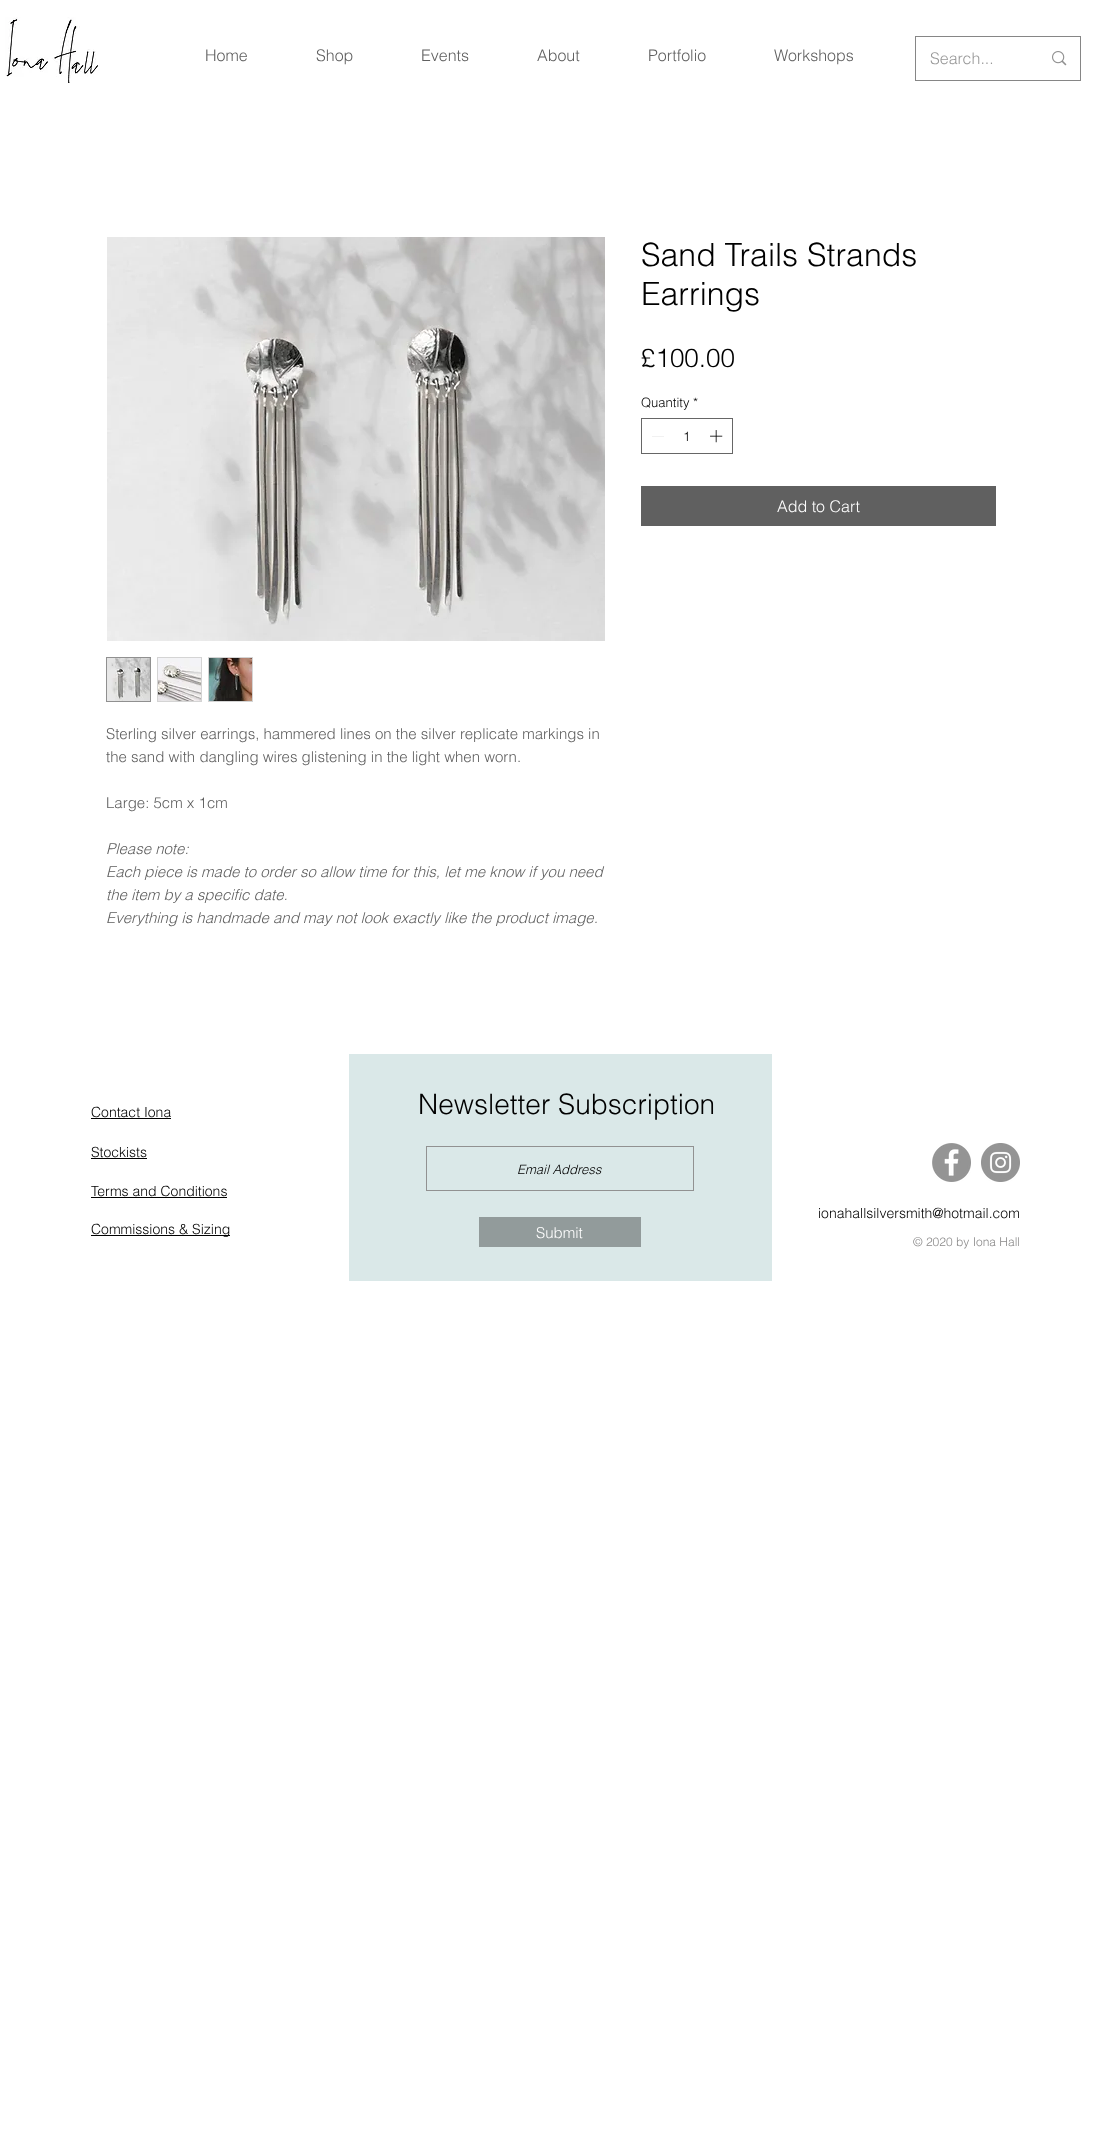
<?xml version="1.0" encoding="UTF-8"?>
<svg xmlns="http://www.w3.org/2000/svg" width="1101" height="2134">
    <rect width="100%" height="100%" fill="#FFFFFF"/>
    <image x="5" y="17" width="95" height="66" href="img_01.png"/>
    <text x="205" y="61" font-family="helvetica" font-size="16" font-weight="300" fill="#606060">Home</text>
    <text x="316" y="61" font-family="helvetica" font-size="16" font-weight="300" fill="#606060">Shop</text>
    <text x="421" y="61" font-family="helvetica" font-size="16" font-weight="300" fill="#606060">Events</text>
    <text x="537" y="61" font-family="helvetica" font-size="16" font-weight="300" fill="#606060">About</text>
    <text x="648" y="61" font-family="helvetica" font-size="16" font-weight="300" fill="#606060">Portfolio</text>
    <text x="774" y="61" font-family="helvetica" font-size="16" font-weight="300" fill="#606060">Workshops</text>
    <rect x="915.5" y="36.5" width="165" height="44" fill="none" stroke="#868686"/>
    <text x="930" y="64" font-family="helvetica" font-size="16" font-weight="300" fill="#999999">Search...</text>
    <image x="1052" y="51" width="15" height="15" href="img_02.png"/>
    <text font-family="helvetica" font-size="32" font-weight="300" fill="#000000">
        <tspan x="641" y="266">Sand Trails Strands</tspan>
        <tspan x="641" y="305">Earrings</tspan>
    </text>
    <text x="641" y="367" font-family="helvetica" font-size="26" font-weight="300" fill="#000000">£100.00</text>
    <text x="641" y="407" font-family="helvetica" font-size="13" font-weight="300" fill="#000000">Quantity</text>
    <text x="693" y="407" font-family="helvetica" font-size="13" font-weight="300" fill="#000000">*</text>
    <rect x="641.5" y="418.5" width="91" height="35" fill="none" stroke="#666666"/>
    <path d="M 664 436 V 436.5 H 652 V 436 Z" fill="#E3E3E3" fill-rule="evenodd"/>
    <text x="683" y="441" font-family="helvetica" font-size="13" font-weight="300" fill="#000000">1</text>
    <image x="710" y="430" width="13" height="13" href="img_03.png"/>
    <rect x="641" y="486" width="355" height="40" fill="#606060"/>
    <text x="777" y="512" font-family="helvetica" font-size="16" font-weight="300" fill="#FFFFFF">Add to Cart</text>
    <image x="107" y="237" width="498" height="404" href="img_04.png"/>
    <rect x="106.5" y="657.5" width="44" height="44" fill="none" stroke="#909090"/>
    <image x="107" y="658" width="43" height="43" href="img_05.png"/>
    <rect x="157" y="657" width="45" height="45" fill="#D4D4D4"/>
    <image x="158" y="658" width="43" height="43" href="img_06.png"/>
    <rect x="208" y="657" width="45" height="45" fill="#D4D4D4"/>
    <image x="209" y="658" width="43" height="43" href="img_07.png"/>
    <text font-family="helvetica" font-size="15" font-weight="300" fill="#606060">
        <tspan x="106" y="739">Sterling silver earrings, hammered lines on the silver replicate markings in</tspan>
        <tspan x="106" y="762">the sand with dangling wires glistening in the light when worn.</tspan>
    </text>
    <text x="106" y="808" font-family="helvetica" font-size="15" font-weight="300" fill="#606060">Large: 5cm x 1cm</text>
    <text font-family="helvetica" font-size="15" font-weight="300" font-style="italic" fill="#606060">
        <tspan x="106" y="854">Please note:</tspan>
        <tspan x="106" y="877">Each piece is made to order so allow time for this, let me know if you need</tspan>
        <tspan x="106" y="900">the item by a specific date.</tspan>
        <tspan x="106" y="923">Everything is handmade and may not look exactly like the product image.</tspan>
    </text>
    <text x="91" y="1117" font-family="helvetica" font-size="14" font-weight="300" fill="#000000">Contact Iona</text>
    <rect x="91" y="1118" width="80" height="1" fill="#000000"/>
    <rect x="349" y="1054" width="423" height="227" fill="#DAE8E8"/>
    <text x="418" y="1114" font-family="helvetica" font-size="28" font-weight="300" fill="#000000">Newsletter Subscription</text>
    <rect x="426.5" y="1146.5" width="267" height="44" fill="none" stroke="#919191"/>
    <text x="517" y="1174" font-family="helvetica" font-size="13" font-weight="300" font-style="italic" fill="#000000">Email Address</text>
    <rect x="479" y="1217" width="162" height="30" fill="#929B9B"/>
    <text x="536" y="1238" font-family="helvetica" font-size="15" font-weight="300" fill="#FFFFFF">Submit</text>
    <text x="91" y="1157" font-family="helvetica" font-size="14" font-weight="300" fill="#000000">Stockists</text>
    <rect x="91" y="1158" width="56" height="1" fill="#000000"/>
    <image x="932" y="1143" width="39" height="39" href="img_08.png"/>
    <image x="981" y="1143" width="39" height="39" href="img_09.png"/>
    <text x="91" y="1196" font-family="helvetica" font-size="14" font-weight="300" fill="#000000">Terms and Conditions</text>
    <rect x="91" y="1197" width="136" height="1" fill="#000000"/>
    <text x="818" y="1218" font-family="helvetica" font-size="14" font-weight="300" fill="#000000">ionahallsilversmith@hotmail.com</text>
    <rect x="91" y="1235" width="139" height="1" fill="#000000"/>
    <text x="91" y="1234" font-family="helvetica" font-size="14" font-weight="300" fill="#000000">Commissions &amp; Sizing</text>
    <text x="913" y="1246" font-family="helvetica" font-size="12" font-weight="300" fill="#8B8A8A">© 2020 by Iona Hall</text>
</svg>
